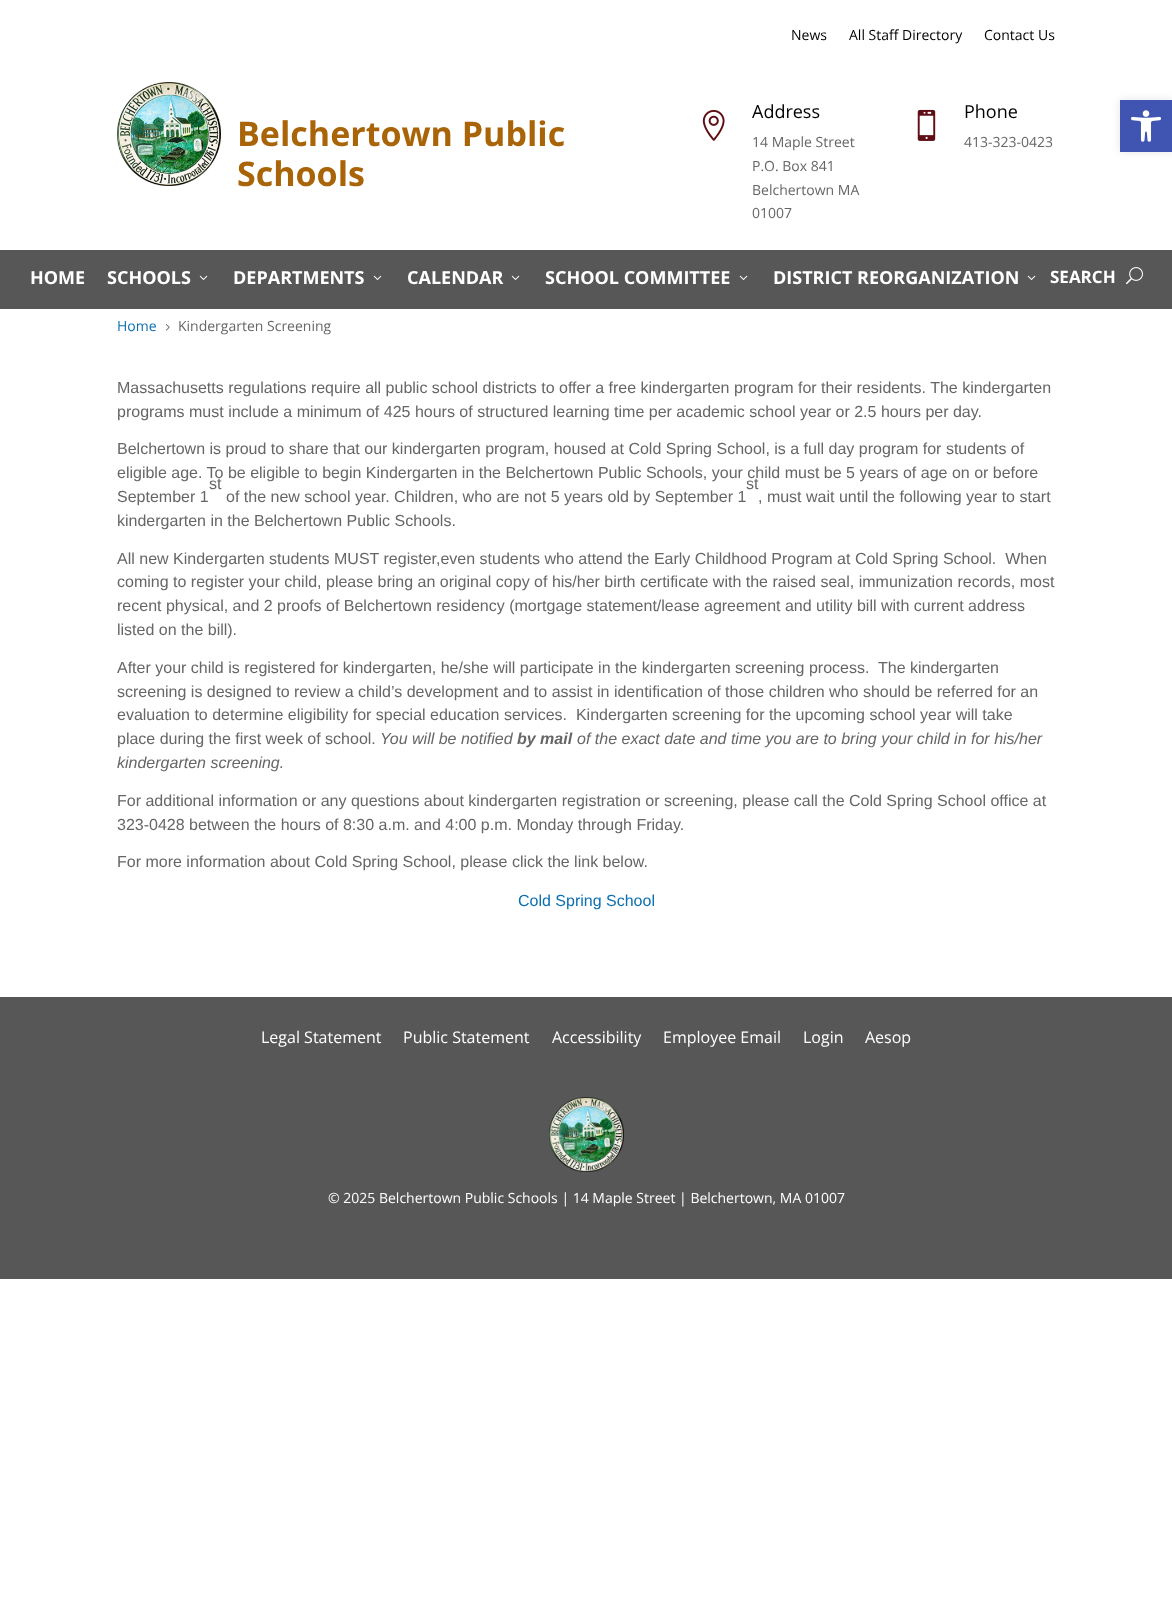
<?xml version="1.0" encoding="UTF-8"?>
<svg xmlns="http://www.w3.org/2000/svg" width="1172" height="1622">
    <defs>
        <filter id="blur1" x="-50%" y="-200%" width="200%" height="500%"><feGaussianBlur stdDeviation="5"/></filter>
    </defs>
    <rect width="100%" height="100%" fill="#FFFFFF"/>
    <text x="791" y="40" font-family="Open Sans" font-size="14" fill="#000000">News</text>
    <text x="849" y="40" font-family="Open Sans" font-size="14" fill="#000000">All Staff Directory</text>
    <text x="984" y="40" font-family="Open Sans" font-size="14" fill="#000000">Contact Us</text>
    <image x="117" y="82" width="104" height="104" href="img_01.png"/>
    <text font-family="Open Sans" font-size="34" font-weight="700" fill="#AA6408">
        <tspan x="237" y="146">Belchertown Public</tspan>
        <tspan x="237" y="186">Schools</tspan>
    </text>
    <image x="702" y="109" width="23" height="32" href="img_02.png"/>
    <text x="752" y="118" font-family="Open Sans" font-size="18" fill="#000000">Address</text>
    <text font-family="Open Sans" font-size="14" fill="#666666">
        <tspan x="752" y="147">14 Maple Street</tspan>
        <tspan x="752" y="171">P.O. Box 841</tspan>
        <tspan x="752" y="195">Belchertown MA</tspan>
        <tspan x="752" y="218">01007</tspan>
    </text>
    <image x="917" y="109" width="19" height="32" href="img_03.png"/>
    <text x="964" y="118" font-family="Open Sans" font-size="18" fill="#000000">Phone</text>
    <text x="964" y="147" font-family="Open Sans" font-size="14" fill="#666666">413-323-0423</text>
    <rect x="0" y="250" width="1172" height="59" fill="#575757"/>
    <text x="30" y="284" font-family="Open Sans" font-size="18" font-weight="700" fill="#FFFFFF">HOME</text>
    <text x="107" y="284" font-family="Open Sans" font-size="18" font-weight="700" fill="#FFFFFF">SCHOOLS</text>
    <image x="199" y="275" width="9" height="5" href="img_04.png"/>
    <text x="233" y="284" font-family="Open Sans" font-size="18" font-weight="700" fill="#FFFFFF">DEPARTMENTS</text>
    <image x="373" y="275" width="9" height="5" href="img_04.png"/>
    <text x="407" y="284" font-family="Open Sans" font-size="18" font-weight="700" fill="#FFFFFF">CALENDAR</text>
    <image x="511" y="275" width="9" height="5" href="img_04.png"/>
    <text x="545" y="284" font-family="Open Sans" font-size="18" font-weight="700" fill="#FFFFFF">SCHOOL COMMITTEE</text>
    <image x="739" y="275" width="9" height="5" href="img_04.png"/>
    <text x="773" y="284" font-family="Open Sans" font-size="18" font-weight="700" fill="#FFFFFF">DISTRICT REORGANIZATION</text>
    <image x="1027" y="275" width="9" height="5" href="img_04.png"/>
    <text x="1050" y="283" font-family="Open Sans" font-size="17" font-weight="700" fill="#FFFFFF">SEARCH</text>
    <image x="1126" y="267" width="17" height="18" href="img_05.png"/>
    <text x="117" y="331" font-family="Open Sans" font-size="14" fill="#0B6FB1">Home</text>
    <image x="166" y="324" width="4" height="7" href="img_06.png"/>
    <text x="178" y="331" font-family="Open Sans" font-size="14" fill="#666666">Kindergarten Screening</text>
    <text font-family="Liberation Sans" font-size="16" fill="#666666">
        <tspan x="117" y="393">Massachusetts regulations require all public school districts to offer a free kindergarten program for their residents. The kindergarten</tspan>
        <tspan x="117" y="417">programs must include a minimum of 425 hours of structured learning time per academic school year or 2.5 hours per day.</tspan>
    </text>
    <text font-family="Liberation Sans" font-size="16" fill="#666666">
        <tspan x="117" y="454">Belchertown is proud to share that our kindergarten program, housed at Cold Spring School, is a full day program for students of</tspan>
        <tspan x="117" y="478">eligible age. To be eligible to begin Kindergarten in the Belchertown Public Schools, your child must be 5 years of age on or before</tspan>
    </text>
    <text x="209" y="489" font-family="Liberation Sans" font-size="16" fill="#666666">st</text>
    <text x="746" y="489" font-family="Liberation Sans" font-size="16" fill="#666666">st</text>
    <text x="117" y="502" font-family="Liberation Sans" font-size="16" fill="#666666">September 1</text>
    <text x="226" y="502" font-family="Liberation Sans" font-size="16" fill="#666666">of the new school year. Children, who are not 5 years old by September 1</text>
    <text x="758" y="502" font-family="Liberation Sans" font-size="16" fill="#666666">, must wait until the following year to start</text>
    <text x="117" y="526" font-family="Liberation Sans" font-size="16" fill="#666666">kindergarten in the Belchertown Public Schools.</text>
    <text font-family="Liberation Sans" font-size="16" fill="#666666" xml:space="preserve"><tspan x="117" y="564">All new Kindergarten students MUST register,even students who attend the Early Childhood Program at Cold Spring School.  When</tspan><tspan x="117" y="587">coming to register your child, please bring an original copy of his/her birth certificate with the raised seal, immunization records, most</tspan><tspan x="117" y="611">recent physical, and 2 proofs of Belchertown residency (mortgage statement/lease agreement and utility bill with current address</tspan><tspan x="117" y="635">listed on the bill).</tspan></text>
    <text font-family="Liberation Sans" font-size="16" fill="#666666" xml:space="preserve"><tspan x="117" y="673">After your child is registered for kindergarten, he/she will participate in the kindergarten screening process.  The kindergarten</tspan><tspan x="117" y="697">screening is designed to review a child’s development and to assist in identification of those children who should be referred for an</tspan><tspan x="117" y="720">evaluation to determine eligibility for special education services.  Kindergarten screening for the upcoming school year will take</tspan><tspan x="117" y="744">place during the first week of school.</tspan></text>
    <text x="380" y="744" font-family="Liberation Sans" font-size="16" font-style="italic" fill="#666666">You will be notified</text>
    <text x="517" y="744" font-family="Liberation Sans" font-size="16" font-weight="700" font-style="italic" fill="#666666">by mail</text>
    <text x="577" y="744" font-family="Liberation Sans" font-size="16" font-style="italic" fill="#666666">of the exact date and time you are to bring your child in for his/her</text>
    <text x="117" y="768" font-family="Liberation Sans" font-size="16" font-style="italic" fill="#666666">kindergarten screening.</text>
    <text font-family="Liberation Sans" font-size="16" fill="#666666">
        <tspan x="117" y="806">For additional information or any questions about kindergarten registration or screening, please call the Cold Spring School office at</tspan>
        <tspan x="117" y="830">323-0428 between the hours of 8:30 a.m. and 4:00 p.m. Monday through Friday.</tspan>
    </text>
    <text x="117" y="867" font-family="Liberation Sans" font-size="16" fill="#666666">For more information about Cold Spring School, please click the link below.</text>
    <text x="518" y="906" font-family="Liberation Sans" font-size="16" fill="#0B6FB1">Cold Spring School</text>
    <rect x="0" y="997" width="1172" height="282" fill="#575757"/>
    <text x="261" y="1043" font-family="Open Sans" font-size="16" fill="#FFFFFF">Legal Statement</text>
    <text x="403" y="1043" font-family="Open Sans" font-size="16" fill="#FFFFFF">Public Statement</text>
    <text x="552" y="1043" font-family="Open Sans" font-size="16" fill="#FFFFFF">Accessibility</text>
    <text x="663" y="1043" font-family="Open Sans" font-size="16" fill="#FFFFFF">Employee Email</text>
    <text x="803" y="1043" font-family="Open Sans" font-size="16" fill="#FFFFFF">Login</text>
    <text x="865" y="1043" font-family="Open Sans" font-size="16" fill="#FFFFFF">Aesop</text>
    <image x="549" y="1097" width="75" height="75" href="img_07.png"/>
    <text x="328" y="1203" font-family="Open Sans" font-size="14" fill="#FFFFFF">© 2025 Belchertown Public Schools | 14 Maple Street | Belchertown, MA 01007</text>
    <rect x="1120" y="100" width="52" height="52" fill="#000000" fill-opacity="0.1" filter="url(#blur1)"/>
    <rect x="1120" y="100" width="52" height="52" fill="#4054B2"/>
    <image x="1131" y="110" width="30" height="32" href="img_08.png"/>
</svg>
